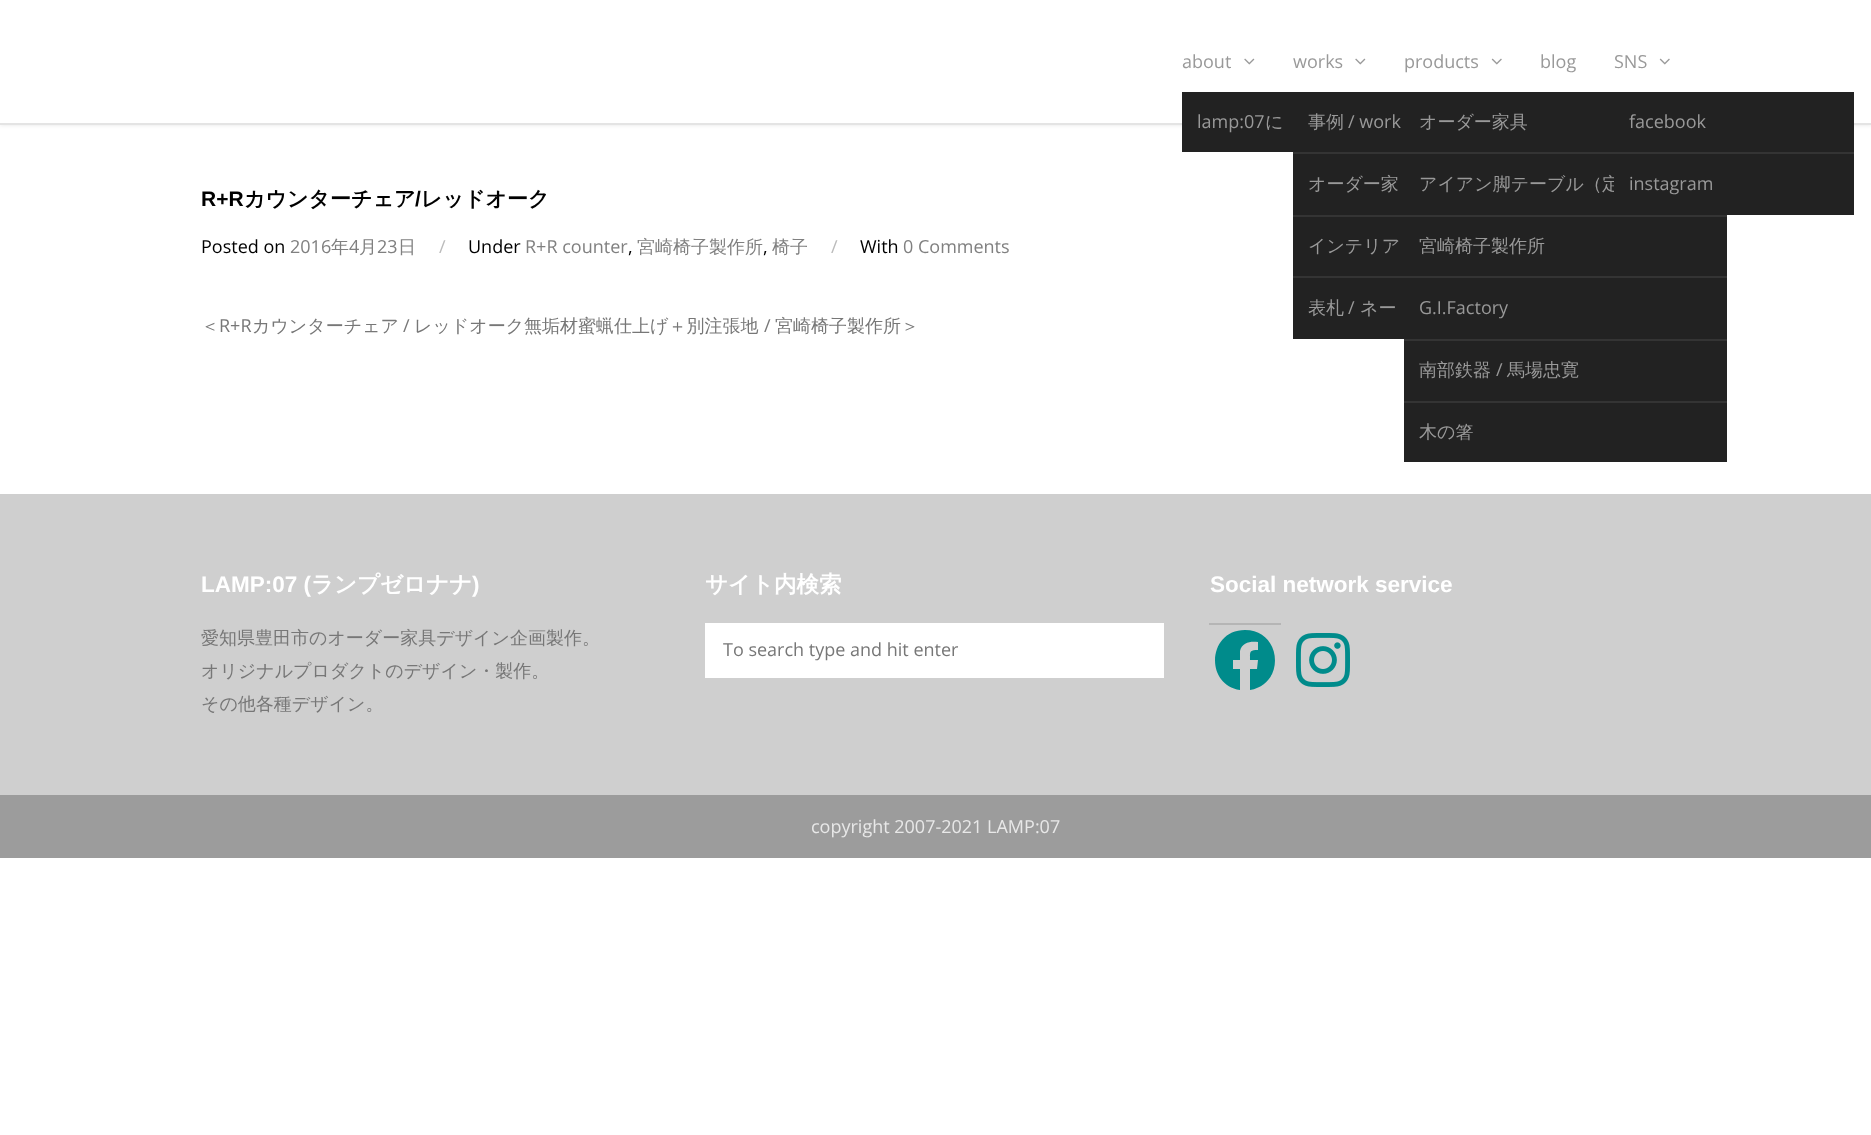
<?xml version="1.0" encoding="UTF-8"?>
<svg xmlns="http://www.w3.org/2000/svg" width="1871" height="1135">
    <defs>
        <filter id="blur1" x="-50%" y="-200%" width="200%" height="500%"><feGaussianBlur stdDeviation="2"/></filter>
    </defs>
    <rect width="100%" height="100%" fill="#FFFFFF"/>
    <text x="201" y="206" font-family="Liberation Sans" font-size="21" font-weight="700" fill="#000000">R+R</text>
    <text x="244" y="206" font-family="WenQuanYi Zen Hei" font-size="21" font-weight="700" fill="#000000">カウンターチェア</text>
    <text x="415" y="206" font-family="Liberation Sans" font-size="21" font-weight="700" fill="#000000">/</text>
    <text x="421" y="206" font-family="WenQuanYi Zen Hei" font-size="21" font-weight="700" fill="#000000">レッドオーク</text>
    <text x="201" y="253" font-family="Open Sans" font-size="18" fill="#000000">Posted on</text>
    <text x="290" y="253" font-family="Open Sans" font-size="18" fill="#808080">2016</text>
    <text x="331" y="253" font-family="WenQuanYi Zen Hei" font-size="18" font-weight="500" fill="#808080">年</text>
    <text x="349" y="253" font-family="Open Sans" font-size="18" fill="#808080">4</text>
    <text x="359" y="253" font-family="WenQuanYi Zen Hei" font-size="18" font-weight="500" fill="#808080">月</text>
    <text x="377" y="253" font-family="Open Sans" font-size="18" fill="#808080">23</text>
    <text x="398" y="253" font-family="WenQuanYi Zen Hei" font-size="18" font-weight="500" fill="#808080">日</text>
    <text x="439" y="253" font-family="Open Sans" font-size="18" fill="#BBBBBB">/</text>
    <text x="468" y="253" font-family="Open Sans" font-size="18" fill="#000000">Under</text>
    <text x="525" y="253" font-family="Open Sans" font-size="18" fill="#808080">R+R counter</text>
    <text x="628" y="253" font-family="Open Sans" font-size="18" fill="#000000">,</text>
    <text x="637" y="253" font-family="WenQuanYi Zen Hei" font-size="18" font-weight="500" fill="#808080">宮崎椅子製作所</text>
    <text x="763" y="253" font-family="Open Sans" font-size="18" fill="#000000">,</text>
    <text x="772" y="253" font-family="WenQuanYi Zen Hei" font-size="18" font-weight="500" fill="#808080">椅子</text>
    <text x="831" y="253" font-family="Open Sans" font-size="18" fill="#BBBBBB">/</text>
    <text x="860" y="253" font-family="Open Sans" font-size="18" fill="#000000">With</text>
    <text x="903" y="253" font-family="Open Sans" font-size="18" fill="#808080">0 Comments</text>
    <text x="201" y="332" font-family="WenQuanYi Zen Hei" font-size="18" font-weight="500" fill="#777777">＜</text>
    <text x="219" y="332" font-family="Open Sans" font-size="18" fill="#777777">R+R</text>
    <text x="252" y="332" font-family="WenQuanYi Zen Hei" font-size="18" font-weight="500" fill="#777777">カウンターチェア</text>
    <text x="403" y="332" font-family="Open Sans" font-size="18" fill="#777777">/</text>
    <text x="414" y="332" font-family="WenQuanYi Zen Hei" font-size="18" font-weight="500" fill="#777777">レッドオーク無垢材蜜蝋仕上げ＋別注張地</text>
    <text x="764" y="332" font-family="Open Sans" font-size="18" fill="#777777">/</text>
    <text x="775" y="332" font-family="WenQuanYi Zen Hei" font-size="18" font-weight="500" fill="#777777">宮崎椅子製作所＞</text>
    <rect x="0" y="0" width="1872" height="125" fill="#000000" fill-opacity="0.1" filter="url(#blur1)"/>
    <rect x="0" y="0" width="1871" height="123" fill="#FFFFFF"/>
    <rect x="0" y="123" width="1871" height="2" fill="#E4E4E4"/>
    <text x="1182" y="68" font-family="Open Sans" font-size="18" fill="#999999">about</text>
    <image x="1244" y="58" width="11" height="7" href="img_01.png"/>
    <rect x="1182" y="92" width="111" height="60" fill="#222222"/>
    <text x="1197" y="128" font-family="Open Sans" font-size="18" fill="#999999">lamp:07</text>
    <text x="1265" y="128" font-family="WenQuanYi Zen Hei" font-size="18" font-weight="500" fill="#999999">に</text>
    <text x="1293" y="68" font-family="Open Sans" font-size="18" fill="#999999">works</text>
    <image x="1355" y="58" width="11" height="7" href="img_01.png"/>
    <rect x="1293" y="92" width="111" height="247" fill="#222222"/>
    <rect x="1293" y="152" width="111" height="2" fill="#343434"/>
    <text x="1308" y="128" font-family="WenQuanYi Zen Hei" font-size="18" font-weight="500" fill="#999999">事例</text>
    <text x="1348" y="128" font-family="Open Sans" font-size="18" fill="#999999">/ work</text>
    <rect x="1293" y="215" width="111" height="2" fill="#343434"/>
    <text x="1308" y="190" font-family="WenQuanYi Zen Hei" font-size="18" font-weight="500" fill="#999999">オーダー家</text>
    <rect x="1293" y="276" width="111" height="2" fill="#343434"/>
    <text x="1308" y="252" font-family="WenQuanYi Zen Hei" font-size="18" font-weight="500" fill="#999999">インテリア</text>
    <text x="1308" y="314" font-family="WenQuanYi Zen Hei" font-size="18" font-weight="500" fill="#999999">表札</text>
    <text x="1348" y="314" font-family="Open Sans" font-size="18" fill="#999999">/</text>
    <text x="1360" y="314" font-family="WenQuanYi Zen Hei" font-size="18" font-weight="500" fill="#999999">ネー</text>
    <text x="1404" y="68" font-family="Open Sans" font-size="18" fill="#999999">products</text>
    <image x="1491" y="58" width="11" height="7" href="img_02.png"/>
    <rect x="1404" y="92" width="323" height="370" fill="#222222"/>
    <rect x="1404" y="152" width="210" height="2" fill="#343434"/>
    <text x="1419" y="128" font-family="WenQuanYi Zen Hei" font-size="18" font-weight="500" fill="#999999">オーダー家具</text>
    <rect x="1404" y="215" width="323" height="2" fill="#343434"/>
    <text x="1419" y="190" font-family="WenQuanYi Zen Hei" font-size="18" font-weight="500" fill="#999999">アイアン脚テーブル（定</text>
    <rect x="1404" y="276" width="323" height="2" fill="#343434"/>
    <text x="1419" y="252" font-family="WenQuanYi Zen Hei" font-size="18" font-weight="500" fill="#999999">宮崎椅子製作所</text>
    <rect x="1404" y="339" width="323" height="2" fill="#343434"/>
    <text x="1419" y="314" font-family="Open Sans" font-size="18" fill="#999999">G.I.Factory</text>
    <rect x="1404" y="401" width="323" height="2" fill="#343434"/>
    <text x="1419" y="376" font-family="WenQuanYi Zen Hei" font-size="18" font-weight="500" fill="#999999">南部鉄器</text>
    <text x="1496" y="376" font-family="Open Sans" font-size="18" fill="#999999">/</text>
    <text x="1507" y="376" font-family="WenQuanYi Zen Hei" font-size="18" font-weight="500" fill="#999999">馬場忠寛</text>
    <text x="1419" y="438" font-family="WenQuanYi Zen Hei" font-size="18" font-weight="500" fill="#999999">木の箸</text>
    <text x="1540" y="68" font-family="Open Sans" font-size="18" fill="#999999">blog</text>
    <text x="1614" y="68" font-family="Open Sans" font-size="18" fill="#999999">SNS</text>
    <image x="1659" y="58" width="11" height="7" href="img_02.png"/>
    <rect x="1614" y="92" width="240" height="123" fill="#222222"/>
    <rect x="1614" y="152" width="240" height="2" fill="#343434"/>
    <text x="1629" y="128" font-family="Open Sans" font-size="18" fill="#999999">facebook</text>
    <text x="1629" y="190" font-family="Open Sans" font-size="18" fill="#999999">instagram</text>
    <rect x="0" y="494" width="1871" height="301" fill="#CFCFCF"/>
    <text x="201" y="592" font-family="Liberation Sans" font-size="22.5" font-weight="700" fill="#FFFFFF">LAMP:07 (</text>
    <text x="311" y="592" font-family="WenQuanYi Zen Hei" font-size="22.5" font-weight="700" fill="#FFFFFF">ランプゼロナナ</text>
    <text x="472" y="592" font-family="Liberation Sans" font-size="22.5" font-weight="700" fill="#FFFFFF">)</text>
    <text font-family="WenQuanYi Zen Hei" font-size="18" font-weight="500" fill="#777777">
        <tspan x="201" y="644">愛知県豊田市のオーダー家具デザイン企画製作。</tspan>
        <tspan x="201" y="677">オリジナルプロダクトのデザイン・製作。</tspan>
        <tspan x="201" y="710">その他各種デザイン。</tspan>
    </text>
    <text x="705" y="592" font-family="WenQuanYi Zen Hei" font-size="22.5" font-weight="700" fill="#FFFFFF">サイト内検索</text>
    <rect x="705" y="623" width="459" height="55" fill="#FFFFFF"/>
    <text x="723" y="656" font-family="Open Sans" font-size="18" fill="#777777">To search type and hit enter</text>
    <text x="1210" y="592" font-family="Liberation Sans" font-size="22.5" font-weight="700" fill="#FFFFFF">Social network service</text>
    <rect x="1209" y="623" width="72" height="2" fill="#B5B5B5"/>
    <path d="M 1245 630 C 1208 630 1204 684 1240 690 V 669 H 1233 V 660 H 1240 V 651 C 1242 642 1251 641 1258 642 V 650 C 1249 650 1250 652 1250 660 H 1258 L 1257 669 H 1250 V 690 C 1286 684 1282 630 1245 630 Z" fill="#008B8B"/>
    <image x="1296" y="633" width="54" height="54" href="img_03.png"/>
    <rect x="0" y="795" width="1871" height="63" fill="#9C9C9C"/>
    <text x="811" y="833" font-family="Open Sans" font-size="18" fill="#E8E8E8">copyright 2007-2021 LAMP:07</text>
</svg>
